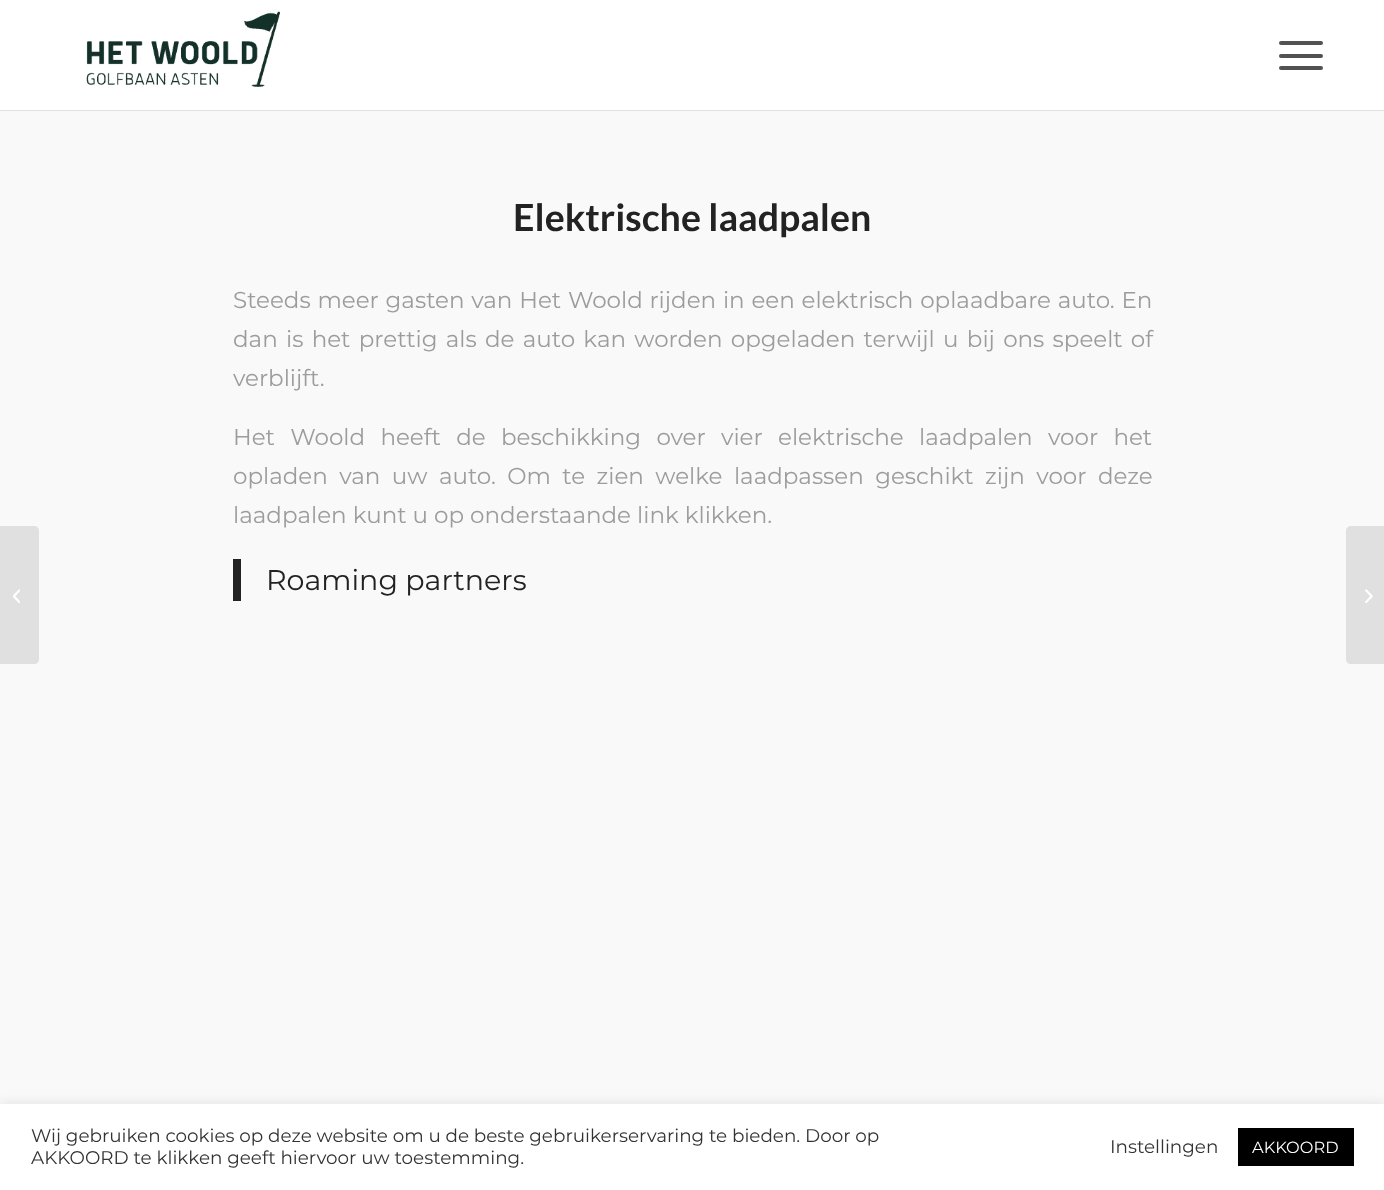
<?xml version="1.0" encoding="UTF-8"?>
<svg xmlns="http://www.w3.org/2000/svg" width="1384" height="1190">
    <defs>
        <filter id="blur1" x="-50%" y="-200%" width="200%" height="500%"><feGaussianBlur stdDeviation="6"/></filter>
    </defs>
    <rect width="100%" height="100%" fill="#F9F9F9"/>
    <rect x="0" y="0" width="1384" height="110" fill="#FFFFFF"/>
    <rect x="0" y="110" width="1384" height="1" fill="#E1E1E1"/>
    <image x="86" y="11" width="194" height="76" href="img_01.png"/>
    <rect x="1279" y="54" width="44" height="4" rx="2" fill="#525252"/>
    <rect x="1279" y="41" width="44" height="4" rx="2" fill="#525252"/>
    <rect x="1279" y="66" width="44" height="4" rx="2" fill="#525252"/>
    <path d="M 0 526 H 34 C 37 526 39 528 39 531 V 659 C 39 662 37 664 34 664 H 0 Z" fill="#E0E0E0"/>
    <image x="13" y="589" width="7" height="14" href="img_02.png"/>
    <text x="513" y="231" font-family="Lato" font-size="37.5" font-weight="700" fill="#222222">Elektrische laadpalen</text>
    <text font-family="Montserrat" font-size="23" font-weight="100" fill="#9C9C9C">
        <tspan x="233" y="308" word-spacing="0.75">Steeds meer gasten van Het Woold rijden in een elektrisch oplaadbare auto. En</tspan>
        <tspan x="233" y="347" word-spacing="2.25">dan is het prettig als de auto kan worden opgeladen terwijl u bij ons speelt of</tspan>
        <tspan x="233" y="386">verblijft.</tspan>
    </text>
    <text font-family="Montserrat" font-size="23" font-weight="100" fill="#9C9C9C">
        <tspan x="233" y="445" word-spacing="9.25">Het Woold heeft de beschikking over vier elektrische laadpalen voor het</tspan>
        <tspan x="233" y="484" word-spacing="5.4">opladen van uw auto. Om te zien welke laadpassen geschikt zijn voor deze</tspan>
        <tspan x="233" y="523">laadpalen kunt u op onderstaande link klikken.</tspan>
    </text>
    <rect x="233" y="559" width="8" height="42" fill="#222222"/>
    <text x="266" y="590" font-family="Montserrat" font-size="28.5" font-weight="100" fill="#222222">Roaming partners</text>
    <path d="M 1351 526 H 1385 V 664 H 1351 C 1348 664 1346 662 1346 659 V 531 C 1346 528 1348 526 1351 526 Z" fill="#E0E0E0"/>
    <image x="1365" y="589" width="8" height="14" href="img_03.png"/>
    <rect x="0" y="1103" width="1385" height="86" fill="#ACABAB" fill-opacity="0.3" filter="url(#blur1)"/>
    <rect x="0" y="1104" width="1384" height="86" fill="#FFFFFF"/>
    <text font-family="Montserrat" font-size="18.35" font-weight="100" fill="#333333">
        <tspan x="31" y="1142">Wij gebruiken cookies op deze website om u de beste gebruikerservaring te bieden. Door op</tspan>
        <tspan x="31" y="1164">AKKOORD te klikken geeft hiervoor uw toestemming.</tspan>
    </text>
    <text x="1110" y="1153" font-family="Montserrat" font-size="18.35" font-weight="100" fill="#333333">Instellingen</text>
    <rect x="1238" y="1128" width="116" height="38" fill="#000000"/>
    <text x="1252" y="1153" font-family="Montserrat" font-size="16.25" font-weight="100" fill="#FFFFFF">AKKOORD</text>
</svg>
